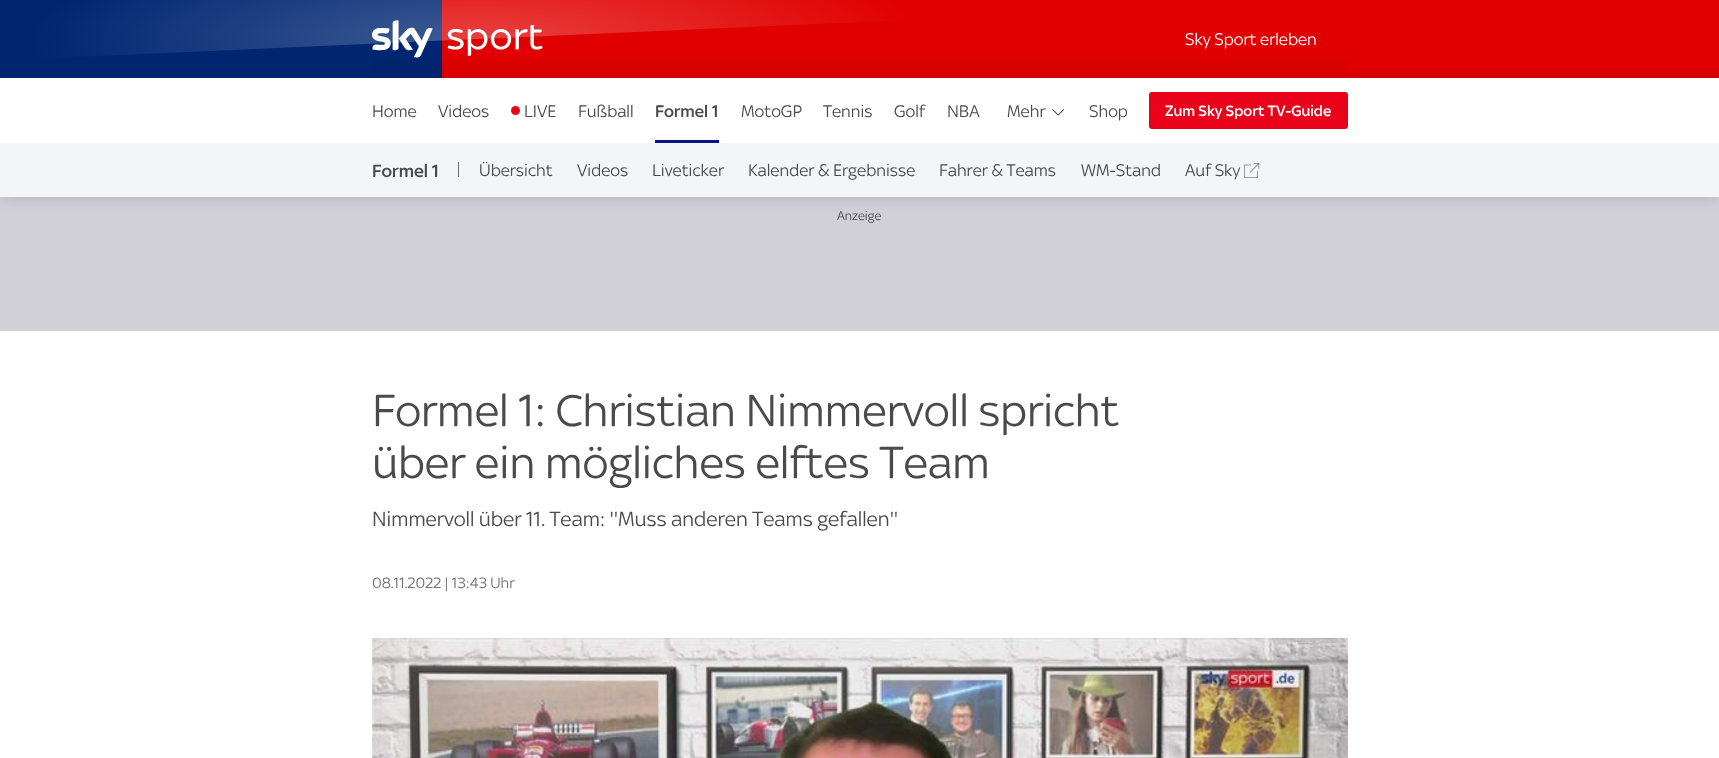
<?xml version="1.0" encoding="UTF-8"?>
<svg xmlns="http://www.w3.org/2000/svg" width="1719" height="758">
    <defs>
        <filter id="blur1" x="-50%" y="-200%" width="200%" height="500%"><feGaussianBlur stdDeviation="7.5"/></filter>
        <linearGradient id="g1" gradientUnits="userSpaceOnUse" x1="860" y1="143" x2="860" y2="0"><stop offset="0" stop-color="#000000" stop-opacity="0.1"/><stop offset="0.66" stop-color="#000000" stop-opacity="0"/></linearGradient>
        <linearGradient id="g2" gradientUnits="userSpaceOnUse" x1="860" y1="143" x2="860" y2="0"><stop offset="0" stop-color="#000000" stop-opacity="0.1"/><stop offset="0.76" stop-color="#000000" stop-opacity="0"/></linearGradient>
        <radialGradient id="g3" gradientUnits="userSpaceOnUse" cx="0" cy="0" r="1" gradientTransform="matrix(450 0 0 100 479 39)"><stop offset="0" stop-color="#FFFFFF" stop-opacity="0.25"/><stop offset="1" stop-color="#FFFFFF" stop-opacity="0"/></radialGradient>
    </defs>
    <rect width="100%" height="100%" fill="#FFFFFF"/>
    <rect x="0" y="197" width="1719" height="134" fill="#D1CFD8"/>
    <rect x="0" y="1" width="1719" height="197" fill="#000000" fill-opacity="0.14" filter="url(#blur1)"/>
    <rect x="0" y="0" width="372" height="78" fill="#002672"/>
    <rect x="1348" y="0" width="371" height="78" fill="#E10000"/>
    <rect x="0" y="69" width="1719" height="9" fill="url(#g1)"/>
    <rect x="372" y="0" width="70" height="78" fill="#002672"/>
    <rect x="442" y="0" width="906" height="78" fill="#E10000"/>
    <rect x="372" y="58" width="976" height="20" fill="url(#g2)"/>
    <image x="372" y="20" width="171" height="38" href="img_01.png"/>
    <path d="M 25 -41 L 924 -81 L 928 19 L 29 59 Z" fill="url(#g3)"/>
    <text x="1185" y="45" font-family="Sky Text" font-size="18" fill="#FFFFFF">Sky Sport erleben</text>
    <rect x="0" y="78" width="1719" height="65" fill="#FFFFFF"/>
    <text x="372" y="117" font-family="Sky Text" font-size="18" fill="#4A4A4A">Home</text>
    <text x="438" y="117" font-family="Sky Text" font-size="18" fill="#4A4A4A">Videos</text>
    <circle cx="515.5" cy="110.5" r="4.5" fill="#EA021A"/>
    <text x="524" y="117" font-family="Sky Text" font-size="18" fill="#4A4A4A">LIVE</text>
    <text x="578" y="117" font-family="Sky Text" font-size="18" fill="#4A4A4A">Fußball</text>
    <rect x="655" y="140" width="64" height="3" fill="#0A1388"/>
    <text x="655" y="117" font-family="Sky Text" font-size="18" font-weight="500" fill="#4A4A4A">Formel 1</text>
    <text x="741" y="117" font-family="Sky Text" font-size="18" fill="#4A4A4A">MotoGP</text>
    <text x="823" y="117" font-family="Sky Text" font-size="18" fill="#4A4A4A">Tennis</text>
    <text x="894" y="117" font-family="Sky Text" font-size="18" fill="#4A4A4A">Golf</text>
    <text x="947" y="117" font-family="Sky Text" font-size="18" fill="#4A4A4A">NBA</text>
    <text x="1007" y="117" font-family="Sky Text" font-size="18" fill="#4A4A4A">Mehr</text>
    <image x="1052" y="109" width="12" height="7" href="img_02.png"/>
    <text x="1089" y="117" font-family="Sky Text" font-size="18" fill="#4A4A4A">Shop</text>
    <rect x="1149" y="92" width="199" height="37" rx="3" fill="#EA021A"/>
    <text x="1165" y="116" font-family="Sky Text" font-size="16" font-weight="500" fill="#FFFFFF">Zum Sky Sport TV-Guide</text>
    <rect x="0" y="143" width="1719" height="54" fill="#F4F5F7"/>
    <text x="372" y="177" font-family="Sky Text" font-size="19" font-weight="500" fill="#4A4A4A">Formel 1</text>
    <rect x="458" y="162" width="1" height="15" fill="#6C6C6D"/>
    <text x="479" y="176" font-family="Sky Text" font-size="18" fill="#4A4A4A">Übersicht</text>
    <text x="577" y="176" font-family="Sky Text" font-size="18" fill="#4A4A4A">Videos</text>
    <text x="652" y="176" font-family="Sky Text" font-size="18" fill="#4A4A4A">Liveticker</text>
    <text x="748" y="176" font-family="Sky Text" font-size="18" fill="#4A4A4A">Kalender &amp; Ergebnisse</text>
    <text x="939" y="176" font-family="Sky Text" font-size="18" fill="#4A4A4A">Fahrer &amp; Teams</text>
    <text x="1081" y="176" font-family="Sky Text" font-size="18" fill="#4A4A4A">WM-Stand</text>
    <text x="1185" y="176" font-family="Sky Text" font-size="18" fill="#4A4A4A">Auf Sky</text>
    <image x="1244" y="163" width="16" height="15" href="img_03.png"/>
    <text x="837" y="220" font-family="Sky Text" font-size="13.5" fill="#4A4A4A">Anzeige</text>
    <text font-family="Sky Text" font-size="48" fill="#4A4A4A">
        <tspan x="372" y="426">Formel 1: Christian Nimmervoll spricht</tspan>
        <tspan x="372" y="478">über ein mögliches elftes Team</tspan>
    </text>
    <text x="372" y="526" font-family="Sky Text" font-size="22" fill="#4A4A4A">Nimmervoll über 11. Team: ''Muss anderen Teams gefallen''</text>
    <text x="372" y="588" font-family="Sky Text" font-size="16" fill="#707070">08.11.2022 | 13:43 Uhr</text>
    <image x="372" y="638" width="976" height="120" href="img_04.png"/>
</svg>
